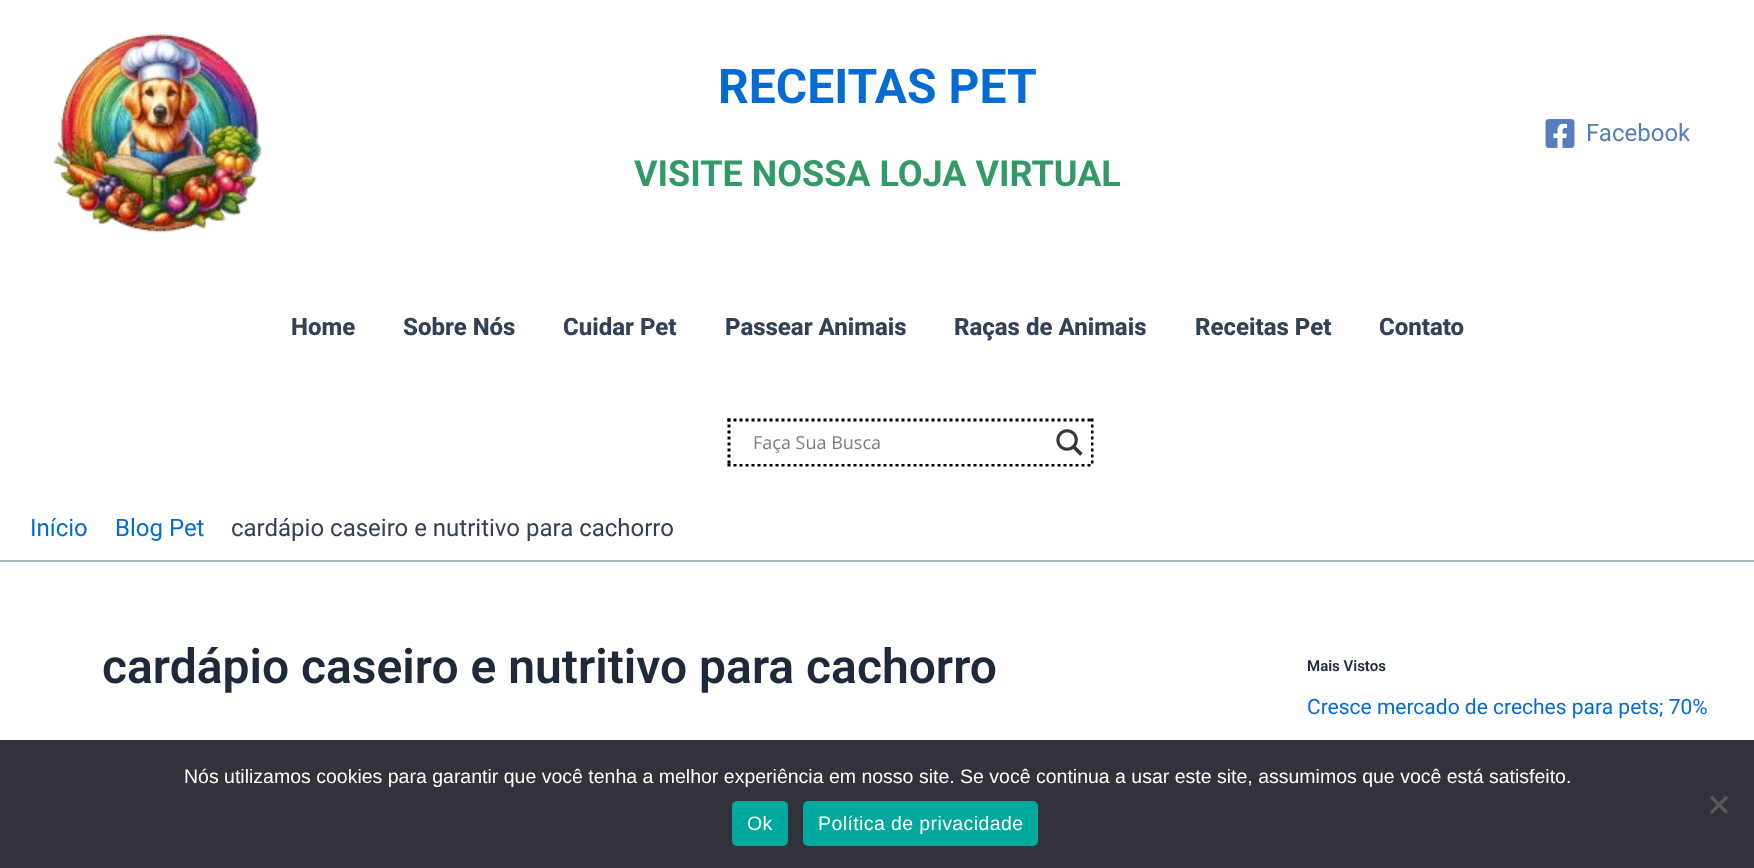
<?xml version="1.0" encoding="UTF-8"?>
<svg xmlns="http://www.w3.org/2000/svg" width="1754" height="868">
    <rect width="100%" height="100%" fill="#FFFFFF"/>
    <image x="53" y="34" width="209" height="200" href="img_01.png"/>
    <text x="718" y="103" font-family="Roboto" font-size="48" font-weight="700" fill="#046BD2">RECEITAS PET</text>
    <text x="634" y="186" font-family="Roboto" font-size="36" font-weight="700" fill="#339966">VISITE NOSSA LOJA VIRTUAL</text>
    <image x="1545" y="119" width="30" height="29" href="img_02.png"/>
    <text x="1586" y="141" font-family="Roboto" font-size="24" fill="#557DBC">Facebook</text>
    <text x="291" y="335" font-family="Roboto" font-size="24" font-weight="800" fill="#334155">Home</text>
    <text x="403" y="335" font-family="Roboto" font-size="24" font-weight="800" fill="#334155">Sobre Nós</text>
    <text x="563" y="335" font-family="Roboto" font-size="24" font-weight="800" fill="#334155">Cuidar Pet</text>
    <text x="725" y="335" font-family="Roboto" font-size="24" font-weight="800" fill="#334155">Passear Animais</text>
    <text x="954" y="335" font-family="Roboto" font-size="24" font-weight="800" fill="#334155">Raças de Animais</text>
    <text x="1195" y="335" font-family="Roboto" font-size="24" font-weight="800" fill="#334155">Receitas Pet</text>
    <text x="1379" y="335" font-family="Roboto" font-size="24" font-weight="800" fill="#334155">Contato</text>
    <path d="M 727.5 420 H 1093.5" fill="none" stroke="#000000" stroke-width="3" stroke-dasharray="3 3"/>
    <path d="M 1092 418.5 V 466.5" fill="none" stroke="#000000" stroke-width="3" stroke-dasharray="3 3"/>
    <path d="M 727.5 465 H 1093.5" fill="none" stroke="#000000" stroke-width="3" stroke-dasharray="3 3"/>
    <path d="M 729 418.5 V 466.5" fill="none" stroke="#000000" stroke-width="3" stroke-dasharray="3 3"/>
    <rect x="733" y="424" width="358" height="40" fill="#FFFFFF"/>
    <text x="753" y="449" font-family="Open Sans" font-size="18" fill="#7D7D7D">Faça Sua Busca</text>
    <image x="1056" y="429" width="27" height="27" href="img_03.png"/>
    <rect x="0" y="560" width="1754" height="2" fill="#ADB6BE"/>
    <text x="30" y="536" font-family="Roboto" font-size="24" fill="#046BD2">Início</text>
    <text x="115" y="536" font-family="Roboto" font-size="24" fill="#046BD2">Blog Pet</text>
    <text x="231" y="536" font-family="Roboto" font-size="24" fill="#334155">cardápio caseiro e nutritivo para cachorro</text>
    <text x="102" y="683" font-family="Roboto" font-size="48" font-weight="600" fill="#1E293B">cardápio caseiro e nutritivo para cachorro</text>
    <text x="1307" y="671" font-family="Roboto" font-size="15" font-weight="600" fill="#1E293B">Mais Vistos</text>
    <text x="1307" y="714" font-family="Roboto" font-size="21" fill="#046BD2">Cresce mercado de creches para pets; 70%</text>
    <rect x="0" y="740" width="1754" height="128" fill="#32323A"/>
    <text x="184" y="783" font-family="Liberation Sans" font-size="19.5" fill="#FFFFFF">Nós utilizamos cookies para garantir que você tenha a melhor experiência em nosso site. Se você continua a usar este site, assumimos que você está satisfeito.</text>
    <path d="M 1726 795.5 L 1728 798 L 1712 814 L 1710 811.5 Z" fill="#59595D"/>
    <path d="M 1710 798 L 1712 795.5 L 1728 811.5 L 1726 814 Z" fill="#59595D"/>
    <rect x="732" y="801" width="56" height="45" rx="5" fill="#00A99D"/>
    <text x="747" y="830" font-family="Liberation Sans" font-size="19.5" letter-spacing="0.4" fill="#FFFFFF">Ok</text>
    <rect x="803" y="801" width="235" height="45" rx="5" fill="#00A99D"/>
    <text x="818" y="830" font-family="Liberation Sans" font-size="19.5" letter-spacing="0.4" fill="#FFFFFF">Política de privacidade</text>
</svg>
